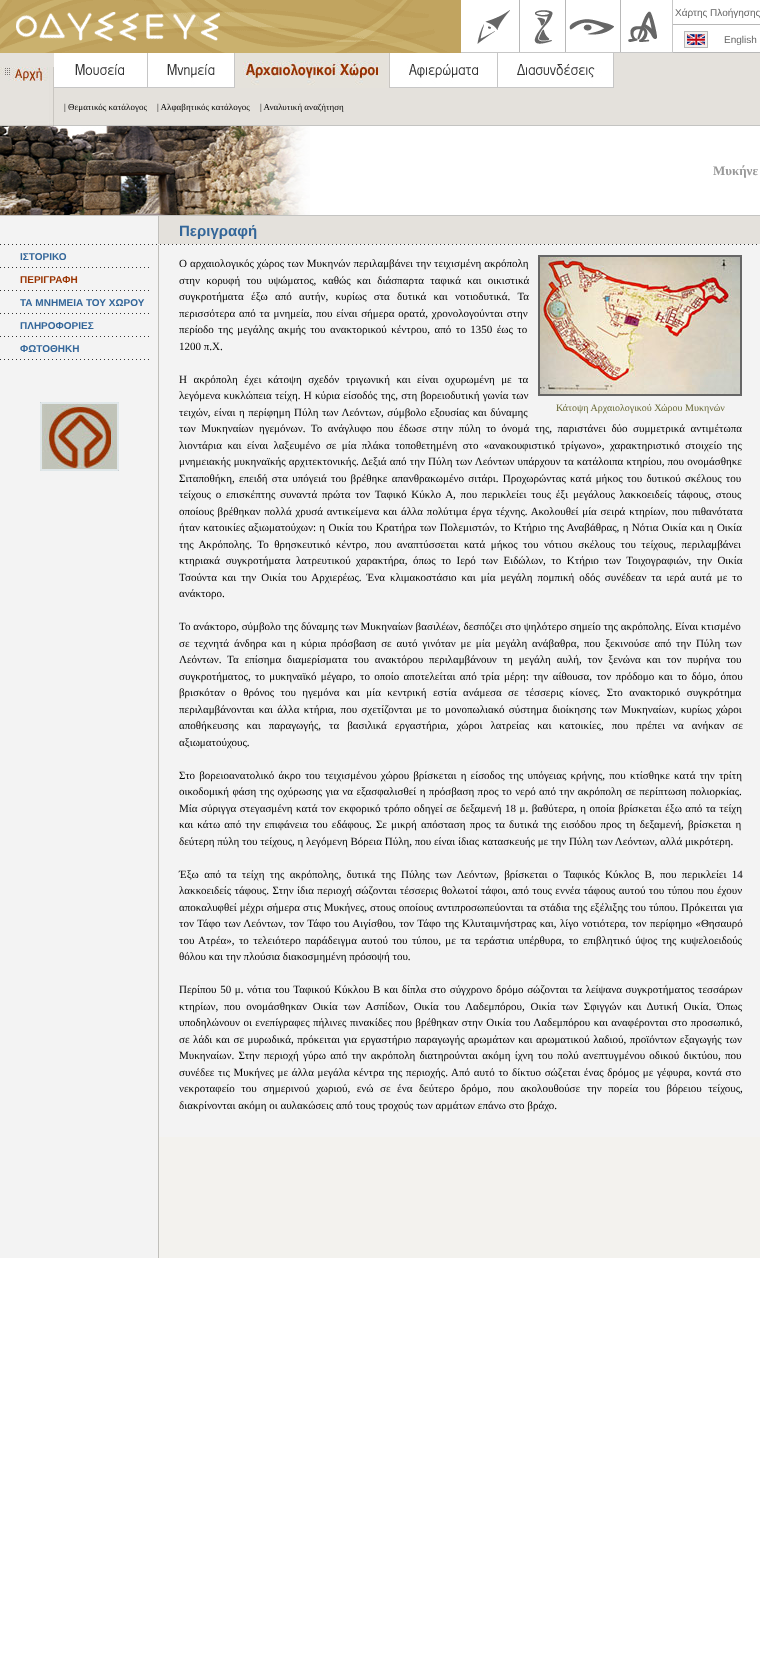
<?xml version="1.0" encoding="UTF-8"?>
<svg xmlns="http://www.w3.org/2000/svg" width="760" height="1654">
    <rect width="100%" height="100%" fill="#FFFFFF"/>
    <image x="0" y="0" width="461" height="53" href="img_01.png"/>
    <image x="461" y="0" width="212" height="53" href="img_02.png"/>
    <text x="675" y="16" font-family="Liberation Sans" font-size="10" fill="#666666">Χάρτης Πλοήγησης</text>
    <rect x="673" y="24" width="87" height="1" fill="#B8B8B8"/>
    <image x="684" y="31" width="24" height="17" href="img_03.png"/>
    <text x="724" y="43" font-family="Liberation Sans" font-size="10" fill="#666666">English</text>
    <rect x="673" y="52" width="87" height="1" fill="#B8B8B8"/>
    <rect x="0" y="53" width="54" height="14" fill="#E5E2DD"/>
    <image x="0" y="67" width="54" height="14" href="img_04.png"/>
    <image x="0" y="81" width="54" height="45" href="img_05.png"/>
    <image x="54" y="53" width="94" height="35" href="img_06.png"/>
    <image x="148" y="53" width="87" height="35" href="img_07.png"/>
    <image x="235" y="53" width="155" height="35" href="img_08.png"/>
    <image x="390" y="53" width="108" height="35" href="img_09.png"/>
    <image x="498" y="53" width="116" height="35" href="img_10.png"/>
    <rect x="614" y="53" width="146" height="35" fill="#E4E1DC"/>
    <rect x="54" y="88" width="706" height="37" fill="#E4E1DC"/>
    <text x="64" y="110" font-family="Liberation Serif" font-size="9" fill="#000000">| Θεματικός κατάλογος</text>
    <text x="157" y="110" font-family="Liberation Serif" font-size="9" fill="#000000">| Αλφαβητικός κατάλογος</text>
    <text x="260" y="110" font-family="Liberation Serif" font-size="9" fill="#000000">| Αναλυτική αναζήτηση</text>
    <rect x="54" y="125" width="706" height="1" fill="#C4C4C2"/>
    <image x="0" y="126" width="310" height="89" href="img_11.png"/>
    <text x="713" y="175" font-family="Liberation Serif" font-size="13" font-weight="700" fill="#999999">Μυκήνε</text>
    <rect x="0" y="215" width="760" height="1" fill="#C4C4C2"/>
    <rect x="159" y="1137" width="601" height="121" fill="#F3F2EE"/>
    <rect x="0" y="216" width="158" height="28" fill="#F3F3F3"/>
    <rect x="158" y="216" width="1" height="28" fill="#C0BFBB"/>
    <rect x="159" y="216" width="601" height="28" fill="#E4E1DC"/>
    <text x="179" y="236" font-family="Liberation Sans" font-size="15" font-weight="700" fill="#336699">Περιγραφή</text>
    <rect x="0" y="244" width="760" height="1" fill="#F3F3F3"/>
    <image x="0" y="244" width="757" height="1" href="img_12.png"/>
    <rect x="0" y="245" width="158" height="1013" fill="#F3F3F3"/>
    <text x="20" y="260" font-family="Liberation Sans" font-size="10" font-weight="700" fill="#336699">ΙΣΤΟΡΙΚΟ</text>
    <image x="0" y="267" width="149" height="1" href="img_13.png"/>
    <text x="20" y="283" font-family="Liberation Sans" font-size="10" font-weight="700" fill="#993300">ΠΕΡΙΓΡΑΦΗ</text>
    <image x="0" y="290" width="149" height="1" href="img_13.png"/>
    <text x="20" y="306" font-family="Liberation Sans" font-size="10" font-weight="700" fill="#336699">ΤΑ ΜΝΗΜΕΙΑ ΤΟΥ ΧΩΡΟΥ</text>
    <image x="0" y="313" width="149" height="1" href="img_13.png"/>
    <text x="20" y="329" font-family="Liberation Sans" font-size="10" font-weight="700" fill="#336699">ΠΛΗΡΟΦΟΡΙΕΣ</text>
    <image x="0" y="336" width="149" height="1" href="img_13.png"/>
    <text x="20" y="352" font-family="Liberation Sans" font-size="10" font-weight="700" fill="#336699">ΦΩΤΟΘΗΚΗ</text>
    <image x="0" y="359" width="149" height="1" href="img_13.png"/>
    <image x="40" y="402" width="79" height="69" href="img_14.png"/>
    <rect x="158" y="245" width="1" height="1013" fill="#C0BFBB"/>
    <rect x="159" y="245" width="601" height="892" fill="#F3F3F3"/>
    <text font-family="Liberation Serif" font-size="11" fill="#000000">
        <tspan x="179" y="267" word-spacing="0.25">Ο αρχαιολογικός χώρος των Μυκηνών περιλαμβάνει την τειχισμένη ακρόπολη</tspan>
        <tspan x="179" y="284" word-spacing="3.5">στην κορυφή του υψώματος, καθώς και διάσπαρτα ταφικά και οικιστικά</tspan>
        <tspan x="179" y="300" word-spacing="4.5">συγκροτήματα έξω από αυτήν, κυρίως στα δυτικά και νοτιοδυτικά. Τα</tspan>
        <tspan x="179" y="317" word-spacing="1">περισσότερα από τα μνημεία, που είναι σήμερα ορατά, χρονολογούνται στην</tspan>
        <tspan x="179" y="333" word-spacing="1.75">περίοδο της μεγάλης ακμής του ανακτορικού κέντρου, από το 1350 έως το</tspan>
        <tspan x="179" y="350">1200 π.Χ.</tspan>
    </text>
    <text font-family="Liberation Serif" font-size="11" fill="#000000">
        <tspan x="179" y="383" word-spacing="3.75">Η ακρόπολη έχει κάτοψη σχεδόν τριγωνική και είναι οχυρωμένη με τα</tspan>
        <tspan x="179" y="399" word-spacing="0.5">λεγόμενα κυκλώπεια τείχη. Η κύρια είσοδός της, στη βορειοδυτική γωνία των</tspan>
        <tspan x="179" y="416" word-spacing="0.75">τειχών, είναι η περίφημη Πύλη των Λεόντων, σύμβολο εξουσίας και δύναμης</tspan>
        <tspan x="179" y="432" word-spacing="2.75">των Μυκηναίων ηγεμόνων. Το ανάγλυφο που έδωσε στην πύλη το όνομά της, παριστάνει δύο συμμετρικά αντιμέτωπα</tspan>
        <tspan x="179" y="449" word-spacing="2.6">λιοντάρια και είναι λαξευμένο σε μία πλάκα τοποθετημένη στο «ανακουφιστικό τρίγωνο», χαρακτηριστικό στοιχείο της</tspan>
        <tspan x="179" y="465" word-spacing="0.4">μνημειακής μυκηναϊκής αρχιτεκτονικής. Δεξιά από την Πύλη των Λεόντων υπάρχουν τα κατάλοιπα κτηρίου, που ονομάσθηκε</tspan>
        <tspan x="179" y="482" word-spacing="1.5">Σιταποθήκη, επειδή στα υπόγειά του βρέθηκε απανθρακωμένο σιτάρι. Προχωρώντας κατά μήκος του δυτικού σκέλους του</tspan>
        <tspan x="179" y="498" word-spacing="2">τείχους ο επισκέπτης συναντά πρώτα τον Ταφικό Κύκλο Α, που περικλείει τους έξι μεγάλους λακκοειδείς τάφους, στους</tspan>
        <tspan x="179" y="515" word-spacing="1">οποίους βρέθηκαν πολλά χρυσά αντικείμενα και άλλα πολύτιμα έργα τέχνης. Ακολουθεί μία σειρά κτηρίων, που πιθανότατα</tspan>
        <tspan x="179" y="531" word-spacing="0.6">ήταν κατοικίες αξιωματούχων: η Οικία του Κρατήρα των Πολεμιστών, το Κτήριο της Αναβάθρας, η Νότια Οικία και η Οικία</tspan>
        <tspan x="179" y="548" word-spacing="2.75">της Ακρόπολης. Το θρησκευτικό κέντρο, που αναπτύσσεται κατά μήκος του νότιου σκέλους του τείχους, περιλαμβάνει</tspan>
        <tspan x="179" y="564" word-spacing="2.75">κτηριακά συγκροτήματα λατρευτικού χαρακτήρα, όπως το Ιερό των Ειδώλων, το Κτήριο των Τοιχογραφιών, την Οικία</tspan>
        <tspan x="179" y="581" word-spacing="2.25">Τσούντα και την Οικία του Αρχιερέως. Ένα κλιμακοστάσιο και μία μεγάλη πομπική οδός συνέδεαν τα ιερά αυτά με το</tspan>
        <tspan x="179" y="597">ανάκτορο.</tspan>
    </text>
    <text font-family="Liberation Serif" font-size="11" fill="#000000">
        <tspan x="179" y="630">Το ανάκτορο, σύμβολο της δύναμης των Μυκηναίων βασιλέων, δεσπόζει στο ψηλότερο σημείο της ακρόπολης. Είναι κτισμένο</tspan>
        <tspan x="179" y="647" word-spacing="2">σε τεχνητά άνδηρα και η κύρια πρόσβαση σε αυτό γινόταν με μία μεγάλη ανάβαθρα, που ξεκινούσε από την Πύλη των</tspan>
        <tspan x="179" y="663" word-spacing="3.1">Λεόντων. Τα επίσημα διαμερίσματα του ανακτόρου περιλαμβάνουν τη μεγάλη αυλή, τον ξενώνα και τον πυρήνα του</tspan>
        <tspan x="179" y="680" word-spacing="1.6">συγκροτήματος, το μυκηναϊκό μέγαρο, το οποίο αποτελείται από τρία μέρη: την αίθουσα, τον πρόδομο και το δόμο, όπου</tspan>
        <tspan x="179" y="696" word-spacing="3.6">βρισκόταν ο θρόνος του ηγεμόνα και μία κεντρική εστία ανάμεσα σε τέσσερις κίονες. Στο ανακτορικό συγκρότημα</tspan>
        <tspan x="179" y="713" word-spacing="1.5">περιλαμβάνονται και άλλα κτήρια, που σχετίζονται με το μονοπωλιακό σύστημα διοίκησης των Μυκηναίων, κυρίως χώροι</tspan>
        <tspan x="179" y="729" word-spacing="5.25">αποθήκευσης και παραγωγής, τα βασιλικά εργαστήρια, χώροι λατρείας και κατοικίες, που πρέπει να ανήκαν σε</tspan>
        <tspan x="179" y="746">αξιωματούχους.</tspan>
    </text>
    <text font-family="Liberation Serif" font-size="11" fill="#000000">
        <tspan x="179" y="779" word-spacing="1.4">Στο βορειοανατολικό άκρο του τειχισμένου χώρου βρίσκεται η είσοδος της υπόγειας κρήνης, που κτίσθηκε κατά την τρίτη</tspan>
        <tspan x="179" y="795" word-spacing="0.6">οικοδομική φάση της οχύρωσης για να εξασφαλισθεί η πρόσβαση προς το νερό από την ακρόπολη σε περίπτωση πολιορκίας.</tspan>
        <tspan x="179" y="812" word-spacing="0.75">Μία σύριγγα στεγασμένη κατά τον εκφορικό τρόπο οδηγεί σε δεξαμενή 18 μ. βαθύτερα, η οποία βρίσκεται έξω από τα τείχη</tspan>
        <tspan x="179" y="828" word-spacing="1.4">και κάτω από την επιφάνεια του εδάφους. Σε μικρή απόσταση προς τα δυτικά της εισόδου προς τη δεξαμενή, βρίσκεται η</tspan>
        <tspan x="179" y="845">δεύτερη πύλη του τείχους, η λεγόμενη Βόρεια Πύλη, που είναι ίδιας κατασκευής με την Πύλη των Λεόντων, αλλά μικρότερη.</tspan>
    </text>
    <text font-family="Liberation Serif" font-size="11" fill="#000000">
        <tspan x="179" y="878" word-spacing="2.6">Έξω από τα τείχη της ακρόπολης, δυτικά της Πύλης των Λεόντων, βρίσκεται ο Ταφικός Κύκλος Β, που περικλείει 14</tspan>
        <tspan x="179" y="894" word-spacing="0.6">λακκοειδείς τάφους. Στην ίδια περιοχή σώζονται τέσσερις θολωτοί τάφοι, από τους εννέα τάφους αυτού του τύπου που έχουν</tspan>
        <tspan x="179" y="911" word-spacing="0.25">αποκαλυφθεί μέχρι σήμερα στις Μυκήνες, στους οποίους αντιπροσωπεύονται τα στάδια της εξέλιξης του τύπου. Πρόκειται για</tspan>
        <tspan x="179" y="927" word-spacing="0.6">τον Τάφο των Λεόντων, τον Τάφο του Αιγίσθου, τον Τάφο της Κλυταιμνήστρας και, λίγο νοτιότερα, τον περίφημο «Θησαυρό</tspan>
        <tspan x="179" y="944" word-spacing="1.6">του Ατρέα», το τελειότερο παράδειγμα αυτού του τύπου, με τα τεράστια υπέρθυρα, το επιβλητικό ύψος της κυψελοειδούς</tspan>
        <tspan x="179" y="960">θόλου και την πλούσια διακοσμημένη πρόσοψή του.</tspan>
    </text>
    <text font-family="Liberation Serif" font-size="11" fill="#000000">
        <tspan x="179" y="993" word-spacing="0.9">Περίπου 50 μ. νότια του Ταφικού Κύκλου Β και δίπλα στο σύγχρονο δρόμο σώζονται τα λείψανα συγκροτήματος τεσσάρων</tspan>
        <tspan x="179" y="1010" word-spacing="3">κτηρίων, που ονομάσθηκαν Οικία των Ασπίδων, Οικία του Λαδεμπόρου, Οικία των Σφιγγών και Δυτική Οικία. Όπως</tspan>
        <tspan x="179" y="1026" word-spacing="0.75">υποδηλώνουν οι ενεπίγραφες πήλινες πινακίδες που βρέθηκαν στην Οικία του Λαδεμπόρου και αναφέρονται στο προσωπικό,</tspan>
        <tspan x="179" y="1043" word-spacing="0.75">σε λάδι και σε μυρωδικά, πρόκειται για εργαστήριο παραγωγής αρωμάτων και αρωματικού λαδιού, προϊόντων εξαγωγής των</tspan>
        <tspan x="179" y="1059" word-spacing="1.5">Μυκηναίων. Στην περιοχή γύρω από την ακρόπολη διατηρούνται ακόμη ίχνη του πολύ ανεπτυγμένου οδικού δικτύου, που</tspan>
        <tspan x="179" y="1076" word-spacing="0.9">συνέδεε τις Μυκήνες με άλλα μεγάλα κέντρα της περιοχής. Από αυτό το δίκτυο σώζεται ένας δρόμος με γέφυρα, κοντά στο</tspan>
        <tspan x="179" y="1092" word-spacing="3.75">νεκροταφείο του σημερινού χωριού, ενώ σε ένα δεύτερο δρόμο, που ακολουθούσε την πορεία του βόρειου τείχους,</tspan>
        <tspan x="179" y="1109">διακρίνονται ακόμη οι αυλακώσεις από τους τροχούς των αρμάτων επάνω στο βράχο.</tspan>
    </text>
    <rect x="538" y="255" width="204" height="141" fill="#666666"/>
    <image x="540" y="257" width="200" height="137" href="img_15.png"/>
    <text x="556" y="411" font-family="Liberation Serif" font-size="10" fill="#666633">Κάτοψη Αρχαιολογικού Χώρου Μυκηνών</text>
</svg>
